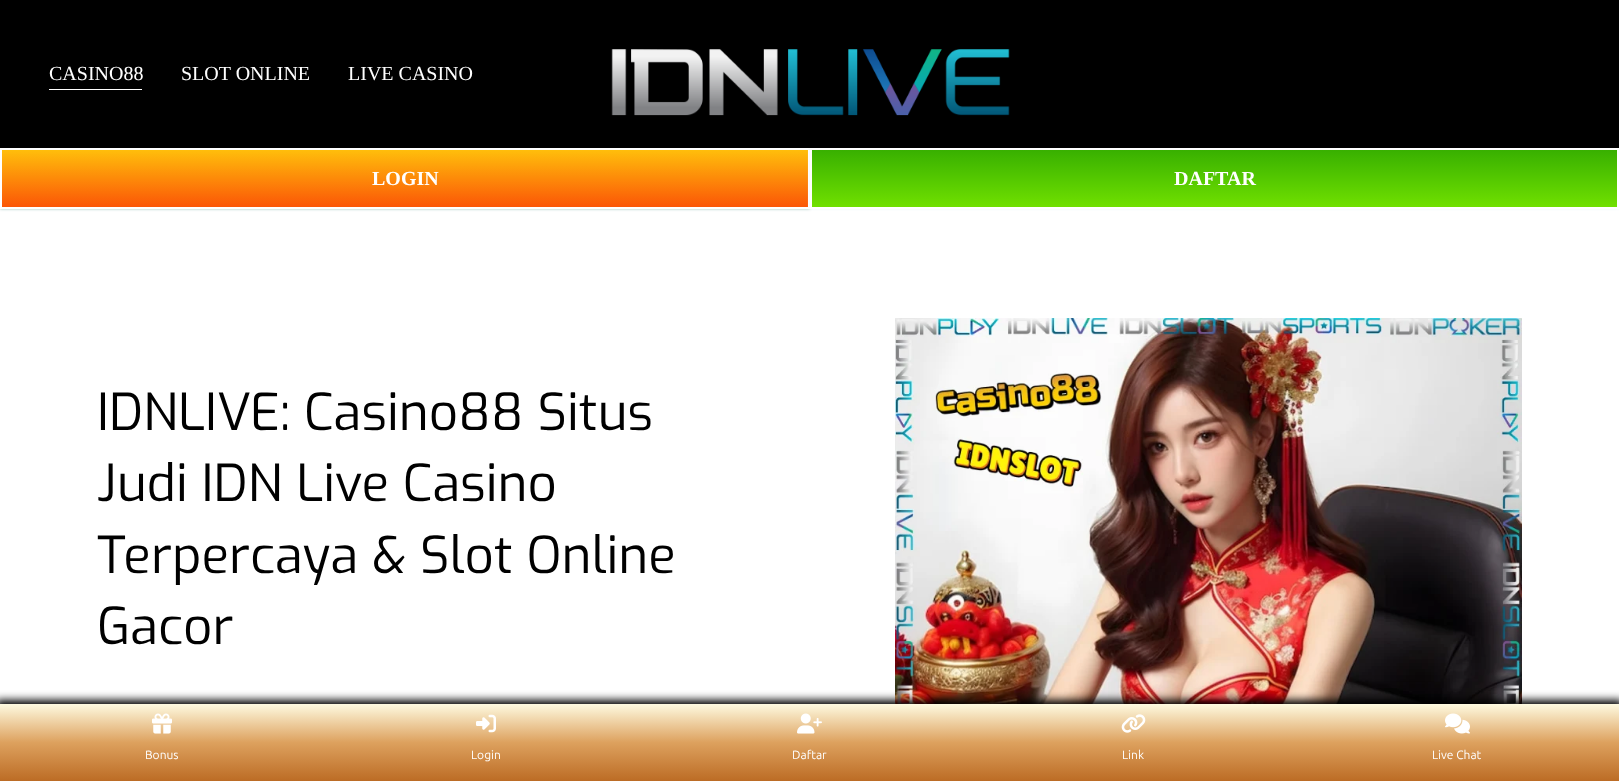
<?xml version="1.0" encoding="UTF-8"?>
<svg xmlns="http://www.w3.org/2000/svg" width="1619" height="781">
    <defs>
        <filter id="blur1" x="-50%" y="-200%" width="200%" height="500%"><feGaussianBlur stdDeviation="1.5"/></filter>
        <linearGradient id="g1" gradientUnits="userSpaceOnUse" x1="405" y1="150" x2="405" y2="207"><stop offset="0" stop-color="#FFBE0B"/><stop offset="1" stop-color="#FB5607"/></linearGradient>
        <linearGradient id="g2" gradientUnits="userSpaceOnUse" x1="1215" y1="150" x2="1215" y2="207"><stop offset="0" stop-color="#38B000"/><stop offset="1" stop-color="#70E000"/></linearGradient>
        <filter id="blur2" x="-50%" y="-200%" width="200%" height="500%"><feGaussianBlur stdDeviation="4"/></filter>
        <linearGradient id="g3" gradientUnits="userSpaceOnUse" x1="810" y1="704" x2="810" y2="781"><stop offset="0" stop-color="#FEFAE0"/><stop offset="0.5" stop-color="#DDA15E"/><stop offset="1" stop-color="#BC6C25"/></linearGradient>
    </defs>
    <rect width="100%" height="100%" fill="#FFFFFF"/>
    <rect x="0" y="148" width="810" height="61" fill="#9BC1BC" filter="url(#blur1)"/>
    <rect x="2" y="150" width="806" height="57" fill="url(#g1)"/>
    <rect x="1" y="149" width="808" height="59" fill="none" stroke="#FFFFFF" stroke-width="2"/>
    <rect x="810" y="148" width="809" height="61" fill="#EDF6F9" filter="url(#blur1)"/>
    <rect x="0" y="0" width="1619" height="148" fill="#000000"/>
    <rect x="49" y="89" width="93" height="1" fill="#FFFFFF"/>
    <text x="49" y="80" font-family="Liberation Serif" font-size="20" fill="#FFFFFF">CASINO88</text>
    <text x="181" y="80" font-family="Liberation Serif" font-size="20" fill="#FFFFFF">SLOT ONLINE</text>
    <text x="348" y="80" font-family="Liberation Serif" font-size="20" fill="#FFFFFF">LIVE CASINO</text>
    <image x="611" y="49" width="399" height="67" href="img_01.png"/>
    <text x="372" y="185" font-family="Liberation Serif" font-size="20" font-weight="700" fill="#FFFFFF">LOGIN</text>
    <rect x="812" y="150" width="805" height="57" fill="url(#g2)"/>
    <rect x="811" y="149" width="807" height="59" fill="none" stroke="#FFFFFF" stroke-width="2"/>
    <text x="1174" y="185" font-family="Liberation Serif" font-size="20" font-weight="700" fill="#FFFFFF">DAFTAR</text>
    <text font-family="Exo" font-size="51" fill="#000000">
        <tspan x="97" y="430">IDNLIVE: Casino88 Situs</tspan>
        <tspan x="97" y="501">Judi IDN Live Casino</tspan>
        <tspan x="97" y="573">Terpercaya &amp; Slot Online</tspan>
        <tspan x="97" y="644">Gacor</tspan>
    </text>
    <image x="895" y="318" width="627" height="386" href="img_02.png"/>
    <rect x="-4" y="700" width="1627" height="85" fill="#000000" filter="url(#blur2)"/>
    <rect x="0" y="704" width="1619" height="77" fill="url(#g3)"/>
    <image x="152" y="713" width="20" height="21" href="img_03.png"/>
    <text x="145" y="759" font-family="Ubuntu" font-size="12" fill="#FFFFFF">Bonus</text>
    <image x="476" y="714" width="20" height="19" href="img_04.png"/>
    <text x="471" y="759" font-family="Ubuntu" font-size="12" fill="#FFFFFF">Login</text>
    <image x="797" y="713" width="25" height="21" href="img_05.png"/>
    <text x="792" y="759" font-family="Ubuntu" font-size="12" fill="#FFFFFF">Daftar</text>
    <image x="1121" y="714" width="25" height="19" href="img_06.png"/>
    <text x="1122" y="759" font-family="Ubuntu" font-size="12" fill="#FFFFFF">Link</text>
    <image x="1445" y="713" width="25" height="21" href="img_07.png"/>
    <text x="1432" y="759" font-family="Ubuntu" font-size="12" fill="#FFFFFF">Live Chat</text>
</svg>
